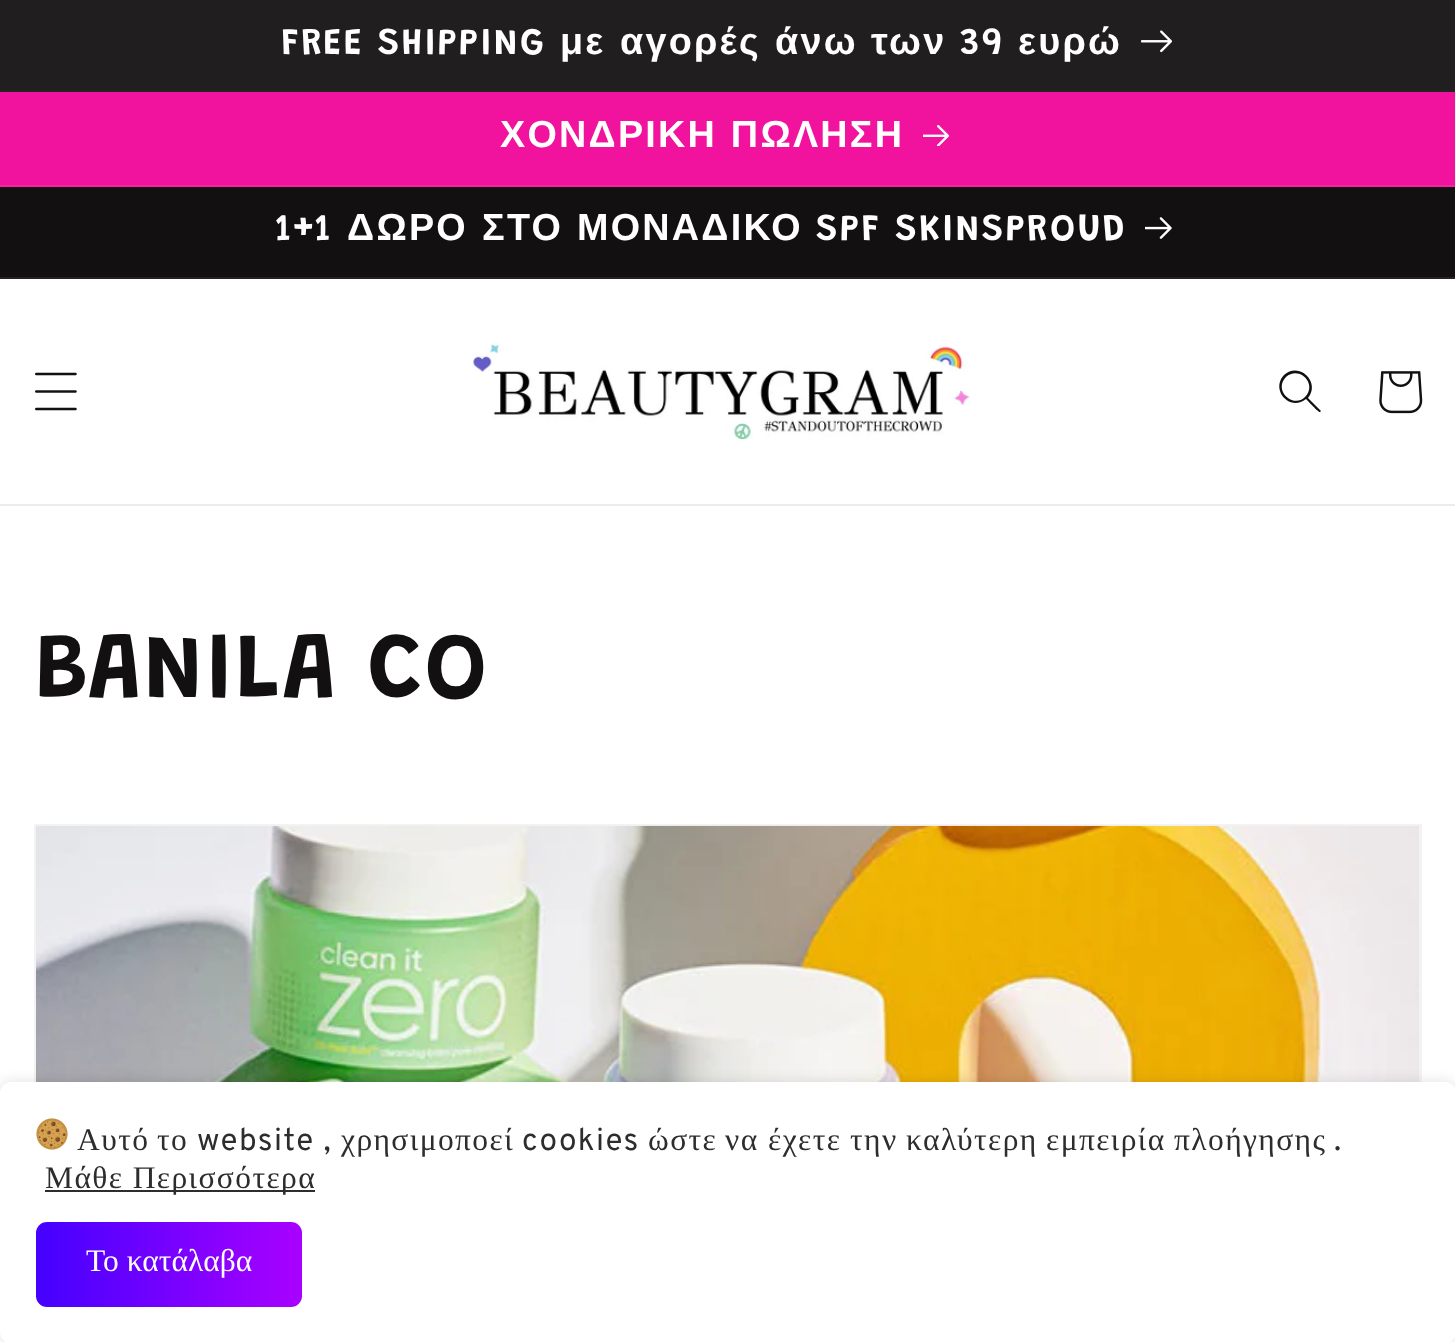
<?xml version="1.0" encoding="UTF-8"?>
<svg xmlns="http://www.w3.org/2000/svg" width="1455" height="1342">
    <defs>
        <clipPath id="clip1"><path d="M 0 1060 H 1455 V 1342 H 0 Z M 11 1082 H 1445 C 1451 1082 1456 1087 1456 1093 V 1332 C 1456 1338 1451 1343 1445 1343 H 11 C 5 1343 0 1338 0 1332 V 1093 C 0 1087 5 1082 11 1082 Z" clip-rule="evenodd"/></clipPath>
        <filter id="blur1" x="-50%" y="-200%" width="200%" height="500%"><feGaussianBlur stdDeviation="7"/></filter>
        <linearGradient id="g1" gradientUnits="userSpaceOnUse" x1="36" y1="1265" x2="302" y2="1265"><stop offset="0" stop-color="#4401FF"/><stop offset="1" stop-color="#A901FF"/></linearGradient>
    </defs>
    <rect width="100%" height="100%" fill="#FFFFFF"/>
    <rect x="0" y="90" width="1455" height="2" fill="#252323"/>
    <rect x="0" y="0" width="1455" height="90" fill="#201E1E"/>
    <text x="281" y="54" font-family="Grandstander" font-size="37.75" font-weight="600" letter-spacing="2.25" fill="#FFFFFF">FREE SHIPPING</text>
    <text x="560" y="54" font-family="Liberation Sans" font-size="37.75" font-weight="700" letter-spacing="2.25" fill="#FFFFFF">με</text>
    <text x="620" y="54" font-family="Liberation Sans" font-size="37.75" font-weight="700" letter-spacing="2.25" fill="#FFFFFF">αγορές</text>
    <text x="775" y="54" font-family="Liberation Sans" font-size="37.75" font-weight="700" letter-spacing="2.25" fill="#FFFFFF">άνω</text>
    <text x="871" y="54" font-family="Liberation Sans" font-size="37.75" font-weight="700" letter-spacing="2.25" fill="#FFFFFF">των</text>
    <text x="960" y="54" font-family="Grandstander" font-size="37.75" font-weight="600" letter-spacing="2.25" fill="#FFFFFF">39</text>
    <text x="1018" y="54" font-family="Liberation Sans" font-size="37.75" font-weight="700" letter-spacing="2.25" fill="#FFFFFF">ευρώ</text>
    <image x="1141" y="30" width="32" height="23" href="img_01.png"/>
    <rect x="0" y="92" width="1455" height="93" fill="#F1129D"/>
    <rect x="0" y="185" width="1455" height="2" fill="#F225A5"/>
    <text x="500" y="147" word-spacing="1" font-family="Liberation Sans" font-size="37.75" font-weight="700" letter-spacing="2.25" fill="#FFFFFF">ΧΟΝΔΡΙΚΗ ΠΩΛΗΣΗ</text>
    <image x="923" y="125" width="26" height="21" href="img_02.png"/>
    <rect x="0" y="187" width="1455" height="90" fill="#121010"/>
    <rect x="0" y="277" width="1455" height="2" fill="#252323"/>
    <text x="276" y="240" font-family="Grandstander" font-size="37.75" font-weight="600" letter-spacing="2.25" fill="#FFFFFF">1+1</text>
    <text x="347" y="240" font-family="Liberation Sans" font-size="37.75" font-weight="700" letter-spacing="2.25" fill="#FFFFFF">ΔΩΡΟ</text>
    <text x="482" y="240" font-family="Liberation Sans" font-size="37.75" font-weight="700" letter-spacing="2.25" fill="#FFFFFF">ΣΤΟ</text>
    <text x="577" y="240" font-family="Liberation Sans" font-size="37.75" font-weight="700" letter-spacing="2.25" fill="#FFFFFF">ΜΟΝΑΔΙΚΟ</text>
    <text x="816" y="240" font-family="Grandstander" font-size="37.75" font-weight="600" letter-spacing="2.25" fill="#FFFFFF">SPF SKINSPROUD</text>
    <image x="1145" y="217" width="27" height="22" href="img_03.png"/>
    <rect x="0" y="504" width="1455" height="2" fill="#ECECEC"/>
    <image x="35" y="372" width="42" height="39" href="img_04.png"/>
    <image x="472" y="344" width="498" height="99" href="img_05.png"/>
    <path d="M 1305 397 C 1293 409 1273 390 1286 377 C 1299 365 1318 384 1305 397 Z M 1306 399 C 1290 412 1270 390 1284 375 C 1299 361 1321 382 1308 398 L 1321 411 L 1320 412 C 1319 413 1308 401 1306 399 Z" fill="#121010" fill-rule="evenodd"/>
    <image x="1379" y="371" width="44" height="43" href="img_06.png"/>
    <text x="34" y="697" font-family="Grandstander" font-size="94.5" font-weight="600" letter-spacing="2" fill="#121010">BANILA CO</text>
    <rect x="35" y="825" width="1386" height="448" fill="none" stroke="#F3F3F3" stroke-width="2"/>
    <image x="36" y="825" width="1384" height="257" href="img_07.png"/>
    <rect x="34" y="1082" width="1388" height="192" fill="#FFFFFF"/>
    <g clip-path="url(#clip1)">
        <rect x="0" y="1082" width="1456" height="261" rx="11" fill="#000000" fill-opacity="0.12" filter="url(#blur1)"/>
    </g>
    <image x="36" y="1118" width="32" height="32" href="img_08.png"/>
    <text x="77" y="1150" font-family="Liberation Serif" font-size="31.5" letter-spacing="1.4" fill="#2D2D2D">Αυτό</text>
    <text x="157" y="1150" font-family="Liberation Serif" font-size="31.5" letter-spacing="1.4" fill="#2D2D2D">το</text>
    <text x="197" y="1150" font-family="Overpass" font-size="31.5" letter-spacing="1.4" fill="#2D2D2D">website ,</text>
    <text x="341" y="1150" font-family="Liberation Serif" font-size="31.5" letter-spacing="1.4" fill="#2D2D2D">χρησιμοποεί</text>
    <text x="522" y="1150" font-family="Overpass" font-size="31.5" letter-spacing="1.4" fill="#2D2D2D">cookies</text>
    <text x="648" y="1150" font-family="Liberation Serif" font-size="31.5" letter-spacing="1.4" fill="#2D2D2D">ώστε</text>
    <text x="725" y="1150" font-family="Liberation Serif" font-size="31.5" letter-spacing="1.4" fill="#2D2D2D">να</text>
    <text x="768" y="1150" font-family="Liberation Serif" font-size="31.5" letter-spacing="1.4" fill="#2D2D2D">έχετε</text>
    <text x="850" y="1150" font-family="Liberation Serif" font-size="31.5" letter-spacing="1.4" fill="#2D2D2D">την</text>
    <text x="906" y="1150" font-family="Liberation Serif" font-size="31.5" letter-spacing="1.4" fill="#2D2D2D">καλύτερη</text>
    <text x="1046" y="1150" font-family="Liberation Serif" font-size="31.5" letter-spacing="1.4" fill="#2D2D2D">εμπειρία</text>
    <text x="1174" y="1150" font-family="Liberation Serif" font-size="31.5" letter-spacing="1.4" fill="#2D2D2D">πλοήγησης</text>
    <text x="1334" y="1150" font-family="Overpass" font-size="31.5" letter-spacing="1.4" fill="#2D2D2D">.</text>
    <rect x="45" y="1190" width="270" height="2" fill="#2D2D2D"/>
    <text x="45" y="1188" font-family="Liberation Serif" font-size="31.5" letter-spacing="1.4" fill="#2D2D2D">Μάθε Περισσότερα</text>
    <rect x="36" y="1222" width="266" height="85" rx="11" fill="url(#g1)"/>
    <text x="86" y="1271" font-family="Liberation Serif" font-size="31.5" fill="#FFFFFF">Το κατάλαβα</text>
</svg>
